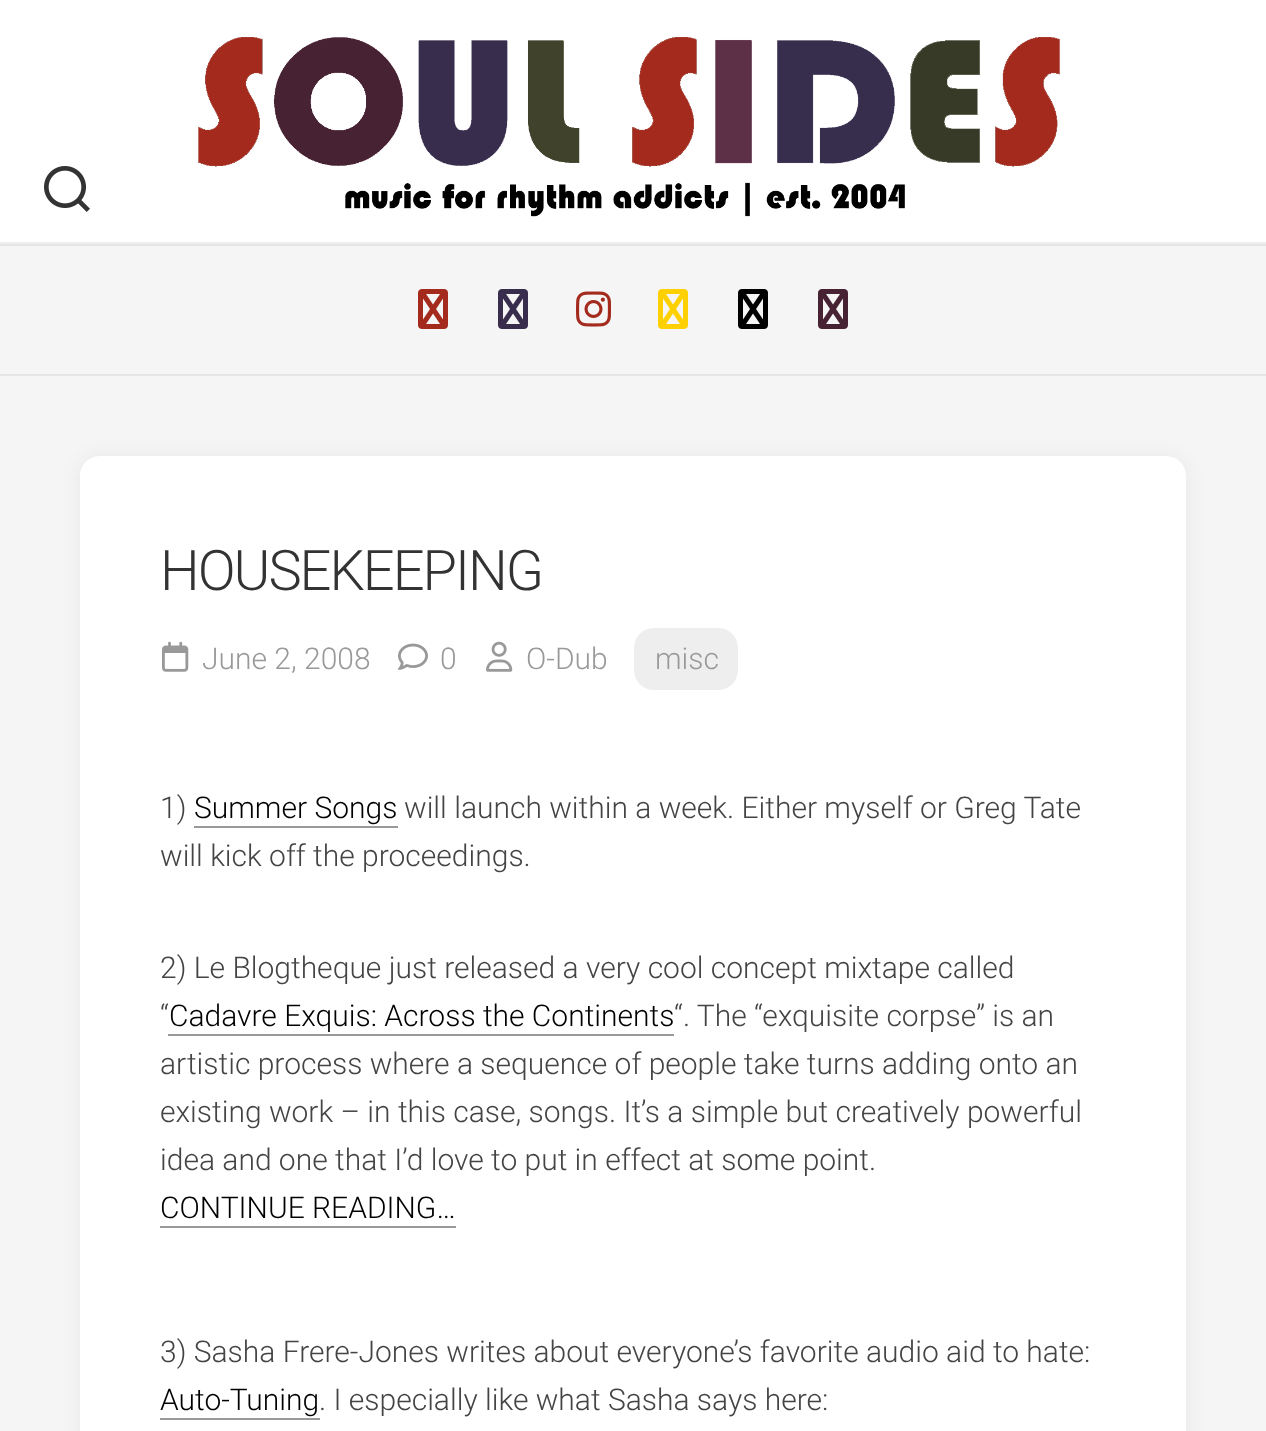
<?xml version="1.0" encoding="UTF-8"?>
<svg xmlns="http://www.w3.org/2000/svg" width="1266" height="1431">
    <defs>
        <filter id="blur1" x="-50%" y="-200%" width="200%" height="500%"><feGaussianBlur stdDeviation="10"/></filter>
    </defs>
    <rect width="100%" height="100%" fill="#F5F5F5"/>
    <rect x="0" y="0" width="1266" height="242" fill="#FFFFFF"/>
    <rect x="0" y="244" width="1266" height="2" fill="#E5E5E5"/>
    <rect x="0" y="242" width="1266" height="2" fill="#EEEEEE"/>
    <image x="198" y="37" width="862" height="180" href="img_01.png"/>
    <image x="44" y="166" width="46" height="46" href="img_02.png"/>
    <rect x="0" y="374" width="1266" height="2" fill="#E5E5E5"/>
    <image x="418" y="289" width="30" height="40" href="img_03.png"/>
    <image x="498" y="289" width="30" height="40" href="img_04.png"/>
    <image x="576" y="291" width="35" height="36" href="img_05.png"/>
    <image x="658" y="289" width="30" height="40" href="img_06.png"/>
    <image x="738" y="289" width="30" height="40" href="img_07.png"/>
    <image x="818" y="289" width="30" height="40" href="img_08.png"/>
    <rect x="80" y="456" width="1106" height="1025" rx="20" fill="#000000" fill-opacity="0.05" filter="url(#blur1)"/>
    <rect x="80" y="456" width="1106" height="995" rx="20" fill="#FFFFFF"/>
    <text x="160" y="590" font-family="Roboto" font-size="56" font-weight="300" letter-spacing="-2" fill="#333333">HOUSEKEEPING</text>
    <image x="162" y="641" width="27" height="31" href="img_09.png"/>
    <text x="202" y="669" font-family="Roboto" font-size="30" font-weight="300" fill="#999999">June 2, 2008</text>
    <image x="398" y="643" width="30" height="27" href="img_10.png"/>
    <text x="440" y="669" font-family="Roboto" font-size="30" font-weight="300" fill="#999999">0</text>
    <image x="486" y="641" width="27" height="31" href="img_11.png"/>
    <text x="526" y="669" font-family="Roboto" font-size="30" font-weight="300" fill="#999999">O-Dub</text>
    <rect x="634" y="628" width="104" height="62" rx="20" fill="#EEEEEE"/>
    <text x="655" y="669" font-family="Roboto" font-size="30" font-weight="300" fill="#999999">misc</text>
    <text x="160" y="818" font-family="Roboto" font-size="30" font-weight="300" fill="#444444">1)</text>
    <text x="194" y="818" font-family="Roboto" font-size="30" font-weight="300" fill="#000000">Summer Songs</text>
    <rect x="194" y="826" width="204" height="2" fill="#999999"/>
    <text x="404" y="818" font-family="Roboto" font-size="30" font-weight="300" fill="#444444">will launch within a week. Either myself or Greg Tate</text>
    <text x="160" y="866" font-family="Roboto" font-size="30" font-weight="300" fill="#444444">will kick off the proceedings.</text>
    <text font-family="Roboto" font-size="30" font-weight="300" fill="#444444">
        <tspan x="160" y="978">2) Le Blogtheque just released a very cool concept mixtape called</tspan>
        <tspan x="160" y="1026">“</tspan>
    </text>
    <text x="169" y="1026" font-family="Roboto" font-size="30" font-weight="300" fill="#000000">Cadavre Exquis: Across the Continents</text>
    <rect x="168" y="1034" width="506" height="2" fill="#999999"/>
    <text x="674" y="1026" font-family="Roboto" font-size="30" font-weight="300" fill="#444444">“. The “exquisite corpse” is an</text>
    <text font-family="Roboto" font-size="30" font-weight="300" fill="#444444">
        <tspan x="160" y="1074">artistic process where a sequence of people take turns adding onto an</tspan>
        <tspan x="160" y="1122">existing work – in this case, songs. It’s a simple but creatively powerful</tspan>
        <tspan x="160" y="1170">idea and one that I’d love to put in effect at some point.</tspan>
    </text>
    <text x="160" y="1218" font-family="Roboto" font-size="30" font-weight="300" fill="#000000">CONTINUE READING…</text>
    <rect x="160" y="1226" width="296" height="2" fill="#999999"/>
    <text x="160" y="1362" font-family="Roboto" font-size="30" font-weight="300" fill="#444444">3) Sasha Frere-Jones writes about everyone’s favorite audio aid to hate:</text>
    <text x="160" y="1410" font-family="Roboto" font-size="30" font-weight="300" fill="#000000">Auto-Tuning</text>
    <rect x="160" y="1418" width="160" height="2" fill="#999999"/>
    <text x="319" y="1410" font-family="Roboto" font-size="30" font-weight="300" fill="#444444">. I especially like what Sasha says here:</text>
</svg>
